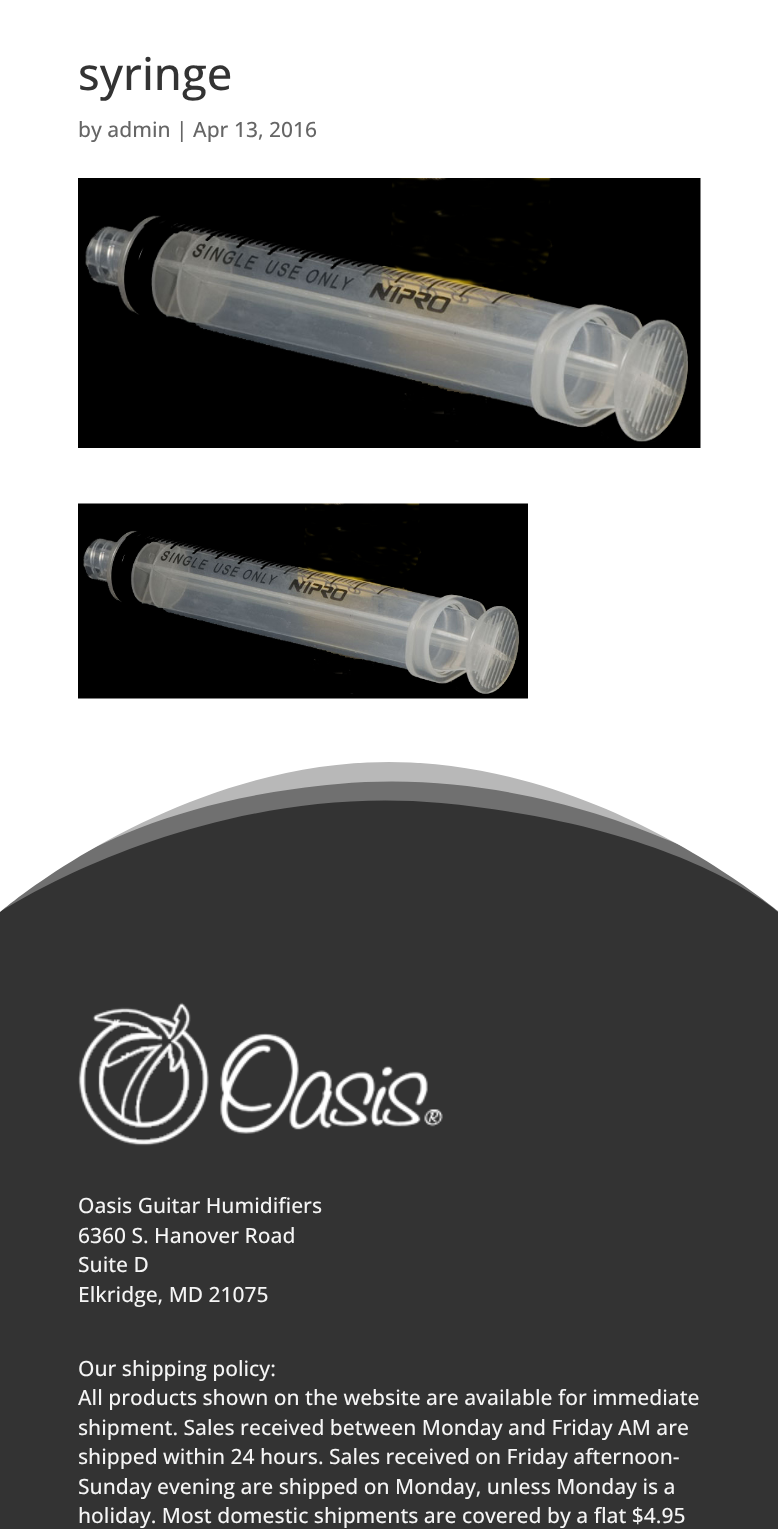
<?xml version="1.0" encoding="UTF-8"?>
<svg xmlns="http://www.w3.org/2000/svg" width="778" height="1529">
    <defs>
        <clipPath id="clip1"><rect x="0" y="762" width="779" height="150"/></clipPath>
    </defs>
    <rect width="100%" height="100%" fill="#FFFFFF"/>
    <text x="78" y="90" font-family="Open Sans" font-size="45" font-weight="500" fill="#333333">syringe</text>
    <text x="78" y="137" font-family="Open Sans" font-size="21" font-weight="500" fill="#666666">by admin | Apr 13, 2016</text>
    <image x="78" y="178" width="623" height="270" href="img_01.png"/>
    <image x="78" y="503" width="450" height="196" href="img_02.png"/>
    <rect x="0" y="800" width="778" height="729" fill="#333333"/>
    <path d="M 441 803 C 198 781 0 912 0 912 V 762 H 778 V 912 C 778 912 684 826 441 803 Z" fill="#707070"/>
    <path d="M 338 784 C 580 762 778 897 778 897 V 762 H 0 V 912 C 0 912 97 805 338 784 Z" fill="#B8B8B8"/>
    <g clip-path="url(#clip1)">
        <path d="M 389 762 C 604 762 778 912 778 911 V 761 H 0 V 912 C 0 912 174 762 389 762 Z" fill="#FFFFFF"/>
    </g>
    <image x="78" y="1002" width="365" height="144" href="img_03.png"/>
    <text font-family="Open Sans" font-size="21" font-weight="500" fill="#F5F5F5">
        <tspan x="78" y="1213">Oasis Guitar Humidifiers</tspan>
        <tspan x="78" y="1243">6360 S. Hanover Road</tspan>
        <tspan x="78" y="1272">Suite D</tspan>
        <tspan x="78" y="1302">Elkridge, MD 21075</tspan>
    </text>
    <text font-family="Open Sans" font-size="21" font-weight="500" fill="#F5F5F5">
        <tspan x="78" y="1376">Our shipping policy:</tspan>
        <tspan x="78" y="1405">All products shown on the website are available for immediate</tspan>
        <tspan x="78" y="1435">shipment. Sales received between Monday and Friday AM are</tspan>
        <tspan x="78" y="1464">shipped within 24 hours. Sales received on Friday afternoon-</tspan>
        <tspan x="78" y="1494">Sunday evening are shipped on Monday, unless Monday is a</tspan>
        <tspan x="78" y="1523">holiday. Most domestic shipments are covered by a flat $4.95</tspan>
    </text>
</svg>
